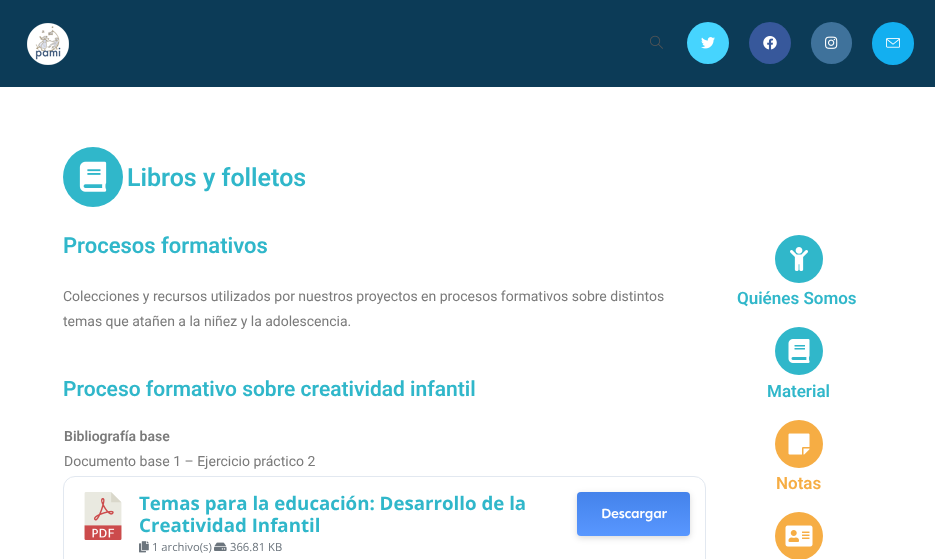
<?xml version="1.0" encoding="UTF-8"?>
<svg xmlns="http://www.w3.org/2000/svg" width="935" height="559">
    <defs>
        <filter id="blur1" x="-50%" y="-200%" width="200%" height="500%"><feGaussianBlur stdDeviation="3"/></filter>
        <linearGradient id="g1" gradientUnits="userSpaceOnUse" x1="634" y1="492" x2="634" y2="536"><stop offset="0" stop-color="#000000" stop-opacity="0.08"/><stop offset="1" stop-color="#FFFFFF" stop-opacity="0.08"/></linearGradient>
    </defs>
    <rect width="100%" height="100%" fill="#FFFFFF"/>
    <rect x="0" y="0" width="935" height="87" fill="#0C3B57"/>
    <image x="27" y="23" width="42" height="42" href="img_01.png"/>
    <image x="650" y="35" width="13" height="14" href="img_02.png"/>
    <circle cx="708" cy="43" r="21" fill="#46D4FE"/>
    <image x="701" y="37" width="14" height="12" href="img_03.png"/>
    <circle cx="770" cy="43" r="21" fill="#37589B"/>
    <image x="763" y="36" width="14" height="14" href="img_04.png"/>
    <rect x="811" y="22" width="41" height="42" rx="20.5" fill="#3F729B"/>
    <image x="825" y="36" width="13" height="13" href="img_05.png"/>
    <rect x="872" y="22" width="42" height="43" rx="21" fill="#13AFF0"/>
    <image x="886" y="38" width="14" height="10" href="img_06.png"/>
    <circle cx="93" cy="177" r="30" fill="#30B7CA"/>
    <image x="79" y="161" width="28" height="31" href="img_07.png"/>
    <text x="127" y="186" font-family="Roboto" font-size="25" font-weight="600" fill="#30B7CA">Libros y folletos</text>
    <text x="63" y="253" font-family="Roboto" font-size="22" font-weight="600" fill="#30B7CA">Procesos formativos</text>
    <text font-family="Roboto" font-size="14" fill="#7A7A7A">
        <tspan x="63" y="301">Colecciones y recursos utilizados por nuestros proyectos en procesos formativos sobre distintos</tspan>
        <tspan x="63" y="326">temas que atañen a la niñez y la adolescencia.</tspan>
    </text>
    <text x="63" y="396" font-family="Roboto" font-size="21" font-weight="600" fill="#30B7CA">Proceso formativo sobre creatividad infantil</text>
    <text x="64" y="441" font-family="Roboto" font-size="14" font-weight="600" fill="#7A7A7A">Bibliografía base</text>
    <text x="64" y="466" font-family="Roboto" font-size="14" fill="#7A7A7A">Documento base 1 – Ejercicio práctico 2</text>
    <rect x="63.5" y="476.5" width="642" height="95" rx="11.5" fill="none" stroke="#E2E8F0"/>
    <image x="84" y="492" width="38" height="48" href="img_08.png"/>
    <text font-family="Open Sans" font-size="18.7" font-weight="700" fill="#30B7CA">
        <tspan x="139" y="510">Temas para la educación: Desarrollo de la</tspan>
        <tspan x="139" y="532">Creatividad Infantil</tspan>
    </text>
    <image x="139" y="541" width="10" height="12" href="img_09.png"/>
    <text x="152" y="551" font-family="Open Sans" font-size="11.25" fill="#6C757D">1 archivo(s)</text>
    <image x="214" y="542" width="13" height="9" href="img_10.png"/>
    <text x="230" y="551" font-family="Open Sans" font-size="11.25" fill="#6C757D">366.81 KB</text>
    <rect x="577" y="494" width="113" height="44" rx="4" fill="#000000" fill-opacity="0.15" filter="url(#blur1)"/>
    <rect x="577" y="492" width="113" height="44" rx="4" fill="#4A8EFF"/>
    <rect x="577" y="492" width="113" height="44" rx="4" fill="url(#g1)"/>
    <text x="601" y="518" font-family="Sen" font-size="14" font-weight="600" letter-spacing="-0.25" fill="#FFFFFF">Descargar</text>
    <circle cx="799" cy="259" r="24" fill="#30B7CA"/>
    <image x="790" y="247" width="18" height="24" href="img_11.png"/>
    <text x="737" y="304" font-family="Roboto" font-size="17" font-weight="600" fill="#30B7CA">Quiénes Somos</text>
    <circle cx="799" cy="351" r="24" fill="#30B7CA"/>
    <image x="788" y="339" width="22" height="24" href="img_12.png"/>
    <text x="767" y="397" font-family="Roboto" font-size="17" font-weight="600" fill="#30B7CA">Material</text>
    <circle cx="799" cy="444" r="24" fill="#F6AD44"/>
    <image x="788" y="433" width="22" height="22" href="img_13.png"/>
    <text x="776" y="489" font-family="Roboto" font-size="17" font-weight="600" fill="#F6AD44">Notas</text>
    <circle cx="799" cy="536" r="24" fill="#F6AD44"/>
    <image x="785" y="525" width="28" height="22" href="img_14.png"/>
</svg>
